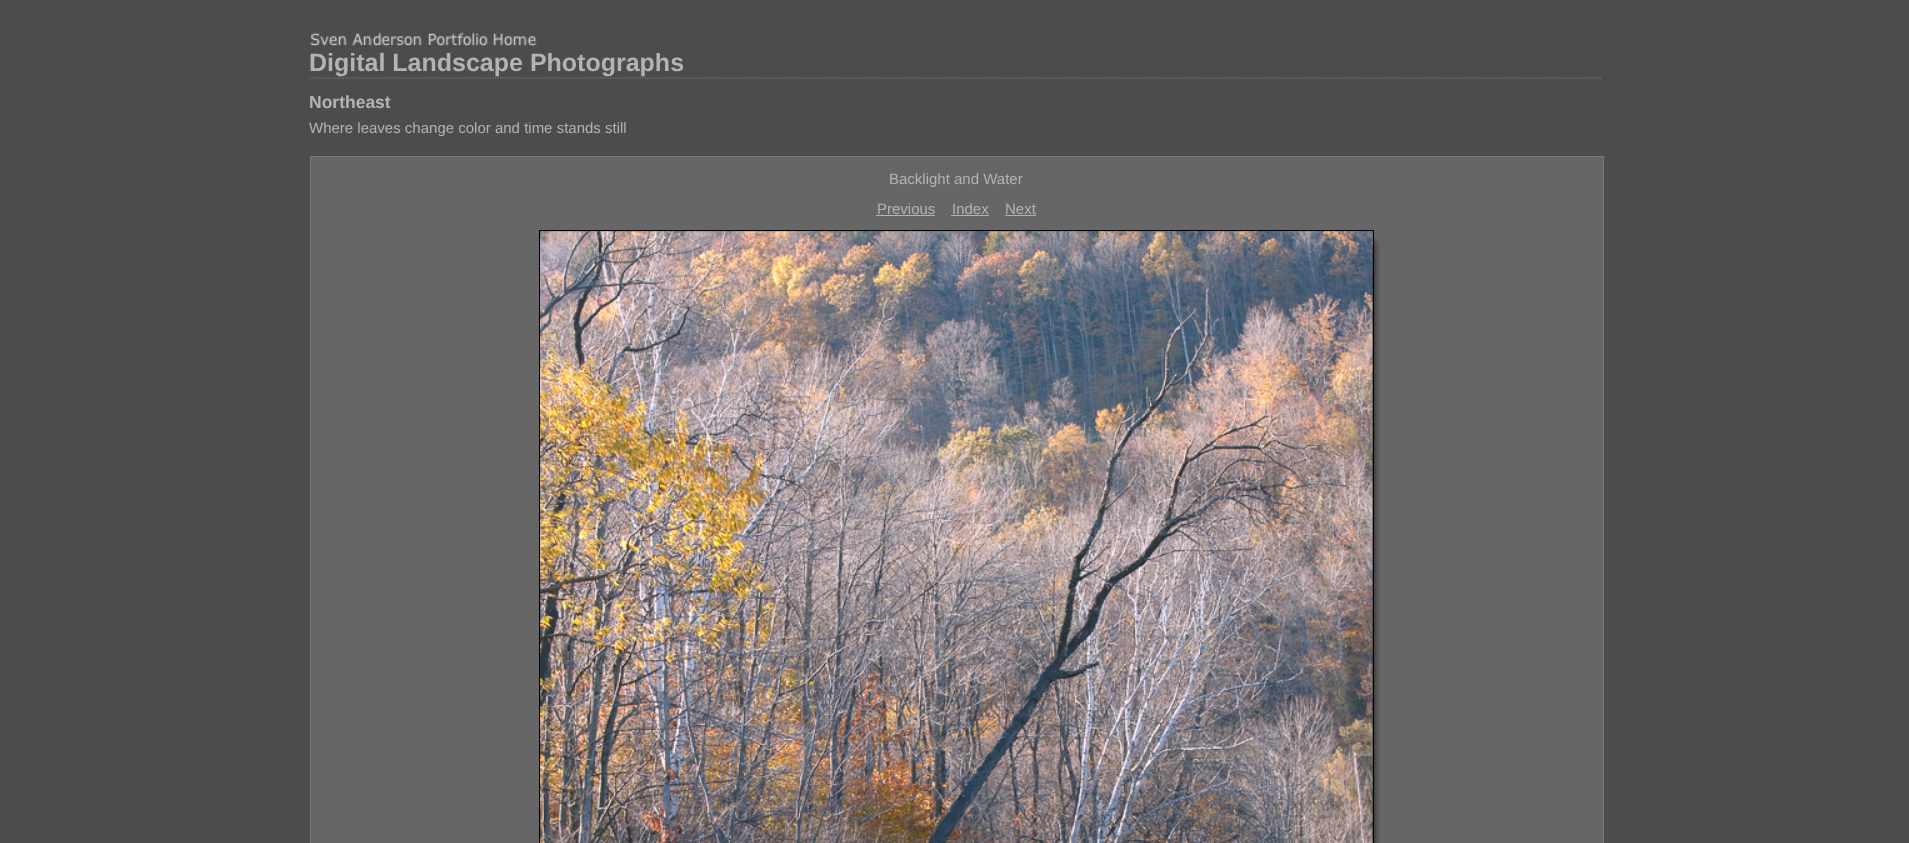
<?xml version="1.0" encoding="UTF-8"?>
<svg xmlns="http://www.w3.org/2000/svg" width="1909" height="843">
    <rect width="100%" height="100%" fill="#4C4C4C"/>
    <image x="310" y="32" width="227" height="15" href="img_01.png"/>
    <path d="M 310 78 H 1601" fill="none" stroke="#7F7F7F" stroke-width="1.2" stroke-dasharray="1.25 1.25"/>
    <text x="309" y="71" font-family="Liberation Sans" font-size="25" font-weight="700" fill="#B3B3B3">Digital Landscape Photographs</text>
    <text x="309" y="108" font-family="Liberation Sans" font-size="17.5" font-weight="700" fill="#B3B3B3">Northeast</text>
    <text x="309" y="133" font-family="Liberation Sans" font-size="15" fill="#B3B3B3">Where leaves change color and time stands still</text>
    <rect x="310.5" y="156.5" width="1293" height="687" fill="#666666" stroke="#787878"/>
    <text x="889" y="184" font-family="Liberation Sans" font-size="15" fill="#B3B3B3">Backlight and Water</text>
    <text x="877" y="214" font-family="Liberation Sans" font-size="15" fill="#B3B3B3">Previous</text>
    <rect x="876" y="215" width="59" height="1" fill="#B3B3B3"/>
    <text x="952" y="214" font-family="Liberation Sans" font-size="15" fill="#B3B3B3">Index</text>
    <rect x="951" y="215" width="38" height="1" fill="#B3B3B3"/>
    <text x="1005" y="214" font-family="Liberation Sans" font-size="15" fill="#B3B3B3">Next</text>
    <rect x="1005" y="215" width="31" height="1" fill="#B3B3B3"/>
    <image x="1372" y="246" width="8" height="597" href="img_02.png"/>
    <rect x="539.5" y="230.5" width="834" height="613" fill="none" stroke="#000000"/>
    <image x="540" y="231" width="833" height="612" href="img_03.png"/>
    <image x="1374" y="237" width="6" height="10" href="img_04.png"/>
</svg>
